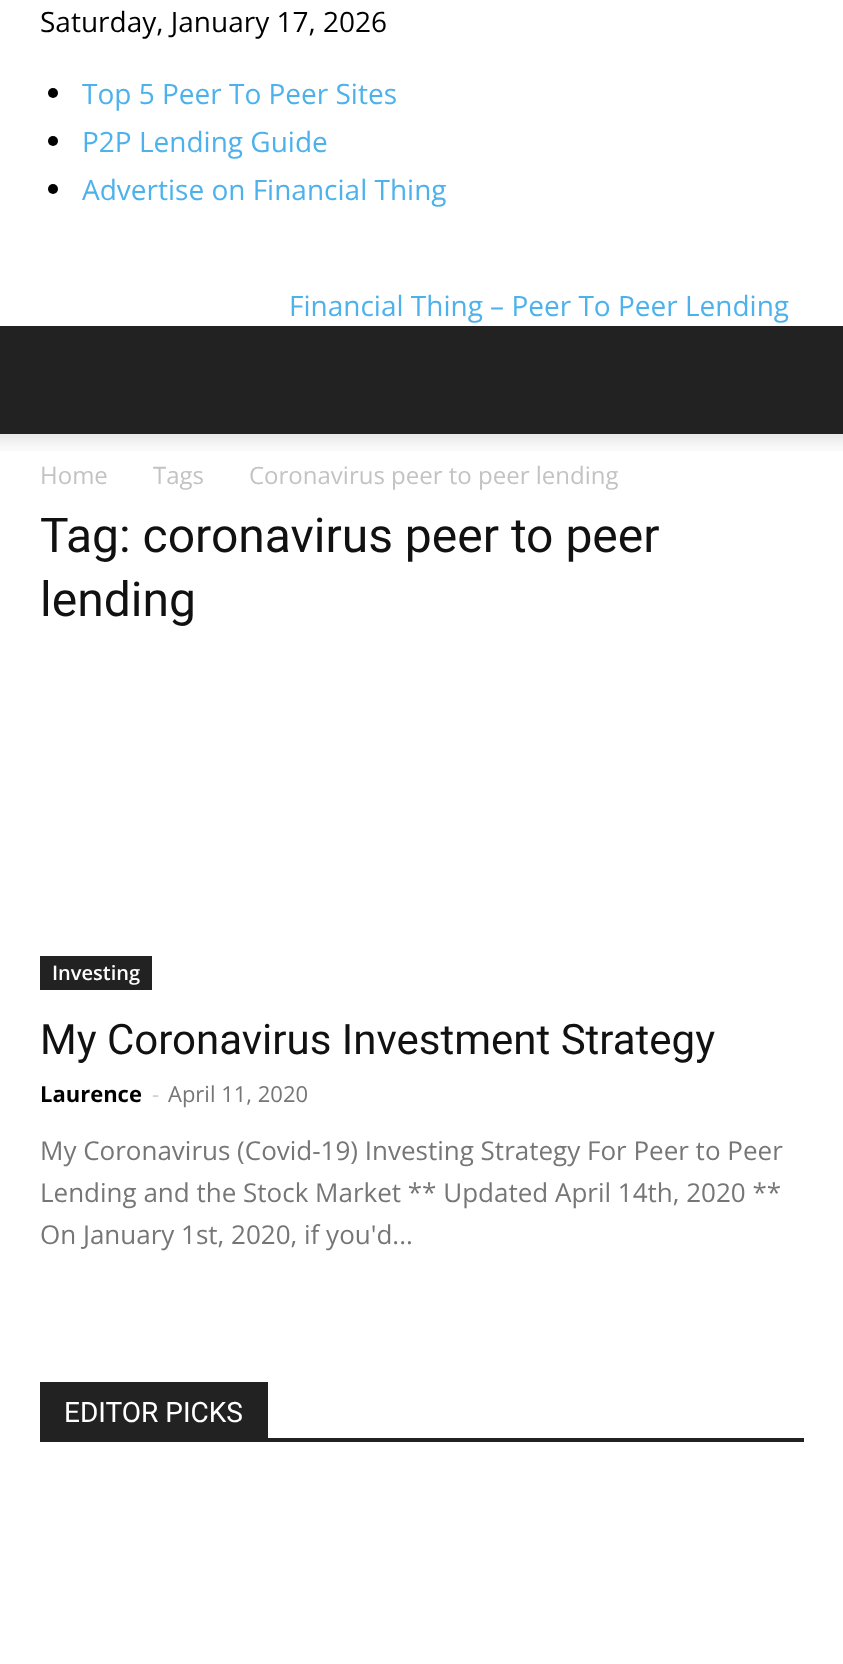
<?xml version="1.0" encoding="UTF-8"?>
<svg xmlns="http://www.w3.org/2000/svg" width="843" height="1664">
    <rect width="100%" height="100%" fill="#FFFFFF"/>
    <text x="40" y="32" font-family="Open Sans" font-size="28" fill="#000000">Saturday, January 17, 2026</text>
    <circle cx="53" cy="93" r="5" fill="#000000"/>
    <text x="82" y="104" font-family="Open Sans" font-size="28" fill="#4DB2EC">Top 5 Peer To Peer Sites</text>
    <circle cx="53" cy="141" r="5" fill="#000000"/>
    <text x="82" y="152" font-family="Open Sans" font-size="28" fill="#4DB2EC">P2P Lending Guide</text>
    <circle cx="53" cy="189" r="5" fill="#000000"/>
    <text x="82" y="200" font-family="Open Sans" font-size="28" fill="#4DB2EC">Advertise on Financial Thing</text>
    <text x="289" y="316" font-family="Open Sans" font-size="28" fill="#4DB2EC">Financial Thing – Peer To Peer Lending</text>
    <rect x="0" y="326" width="843" height="108" fill="#222222"/>
    <image x="0" y="434" width="843" height="17" href="img_01.png"/>
    <text x="40" y="484" font-family="Open Sans" font-size="24" fill="#C3C3C3">Home</text>
    <text x="153" y="484" font-family="Open Sans" font-size="24" fill="#C3C3C3">Tags</text>
    <text x="249" y="484" font-family="Open Sans" font-size="24" fill="#C3C3C3">Coronavirus peer to peer lending</text>
    <text font-family="Roboto" font-size="48" fill="#111111">
        <tspan x="40" y="552">Tag: coronavirus peer to peer</tspan>
        <tspan x="40" y="616">lending</tspan>
    </text>
    <rect x="40" y="956" width="112" height="34" fill="#222222"/>
    <text x="52" y="980" font-family="Open Sans" font-size="20" font-weight="600" fill="#FFFFFF">Investing</text>
    <text x="40" y="1054" font-family="Roboto" font-size="42" fill="#111111">My Coronavirus Investment Strategy</text>
    <text x="40" y="1102" font-family="Open Sans" font-size="22" font-weight="700" fill="#000000">Laurence</text>
    <text x="152" y="1102" font-family="Open Sans" font-size="22" fill="#CCCCCC">-</text>
    <text x="168" y="1102" font-family="Open Sans" font-size="22" fill="#767676">April 11, 2020</text>
    <text font-family="Open Sans" font-size="26" fill="#767676">
        <tspan x="40" y="1160">My Coronavirus (Covid-19) Investing Strategy For Peer to Peer</tspan>
        <tspan x="40" y="1202">Lending and the Stock Market ** Updated April 14th, 2020 **</tspan>
        <tspan x="40" y="1244">On January 1st, 2020, if you'd...</tspan>
    </text>
    <rect x="40" y="1438" width="764" height="4" fill="#222222"/>
    <rect x="40" y="1382" width="228" height="56" fill="#222222"/>
    <text x="64" y="1422" font-family="Roboto" font-size="28" fill="#FFFFFF">EDITOR PICKS</text>
</svg>
